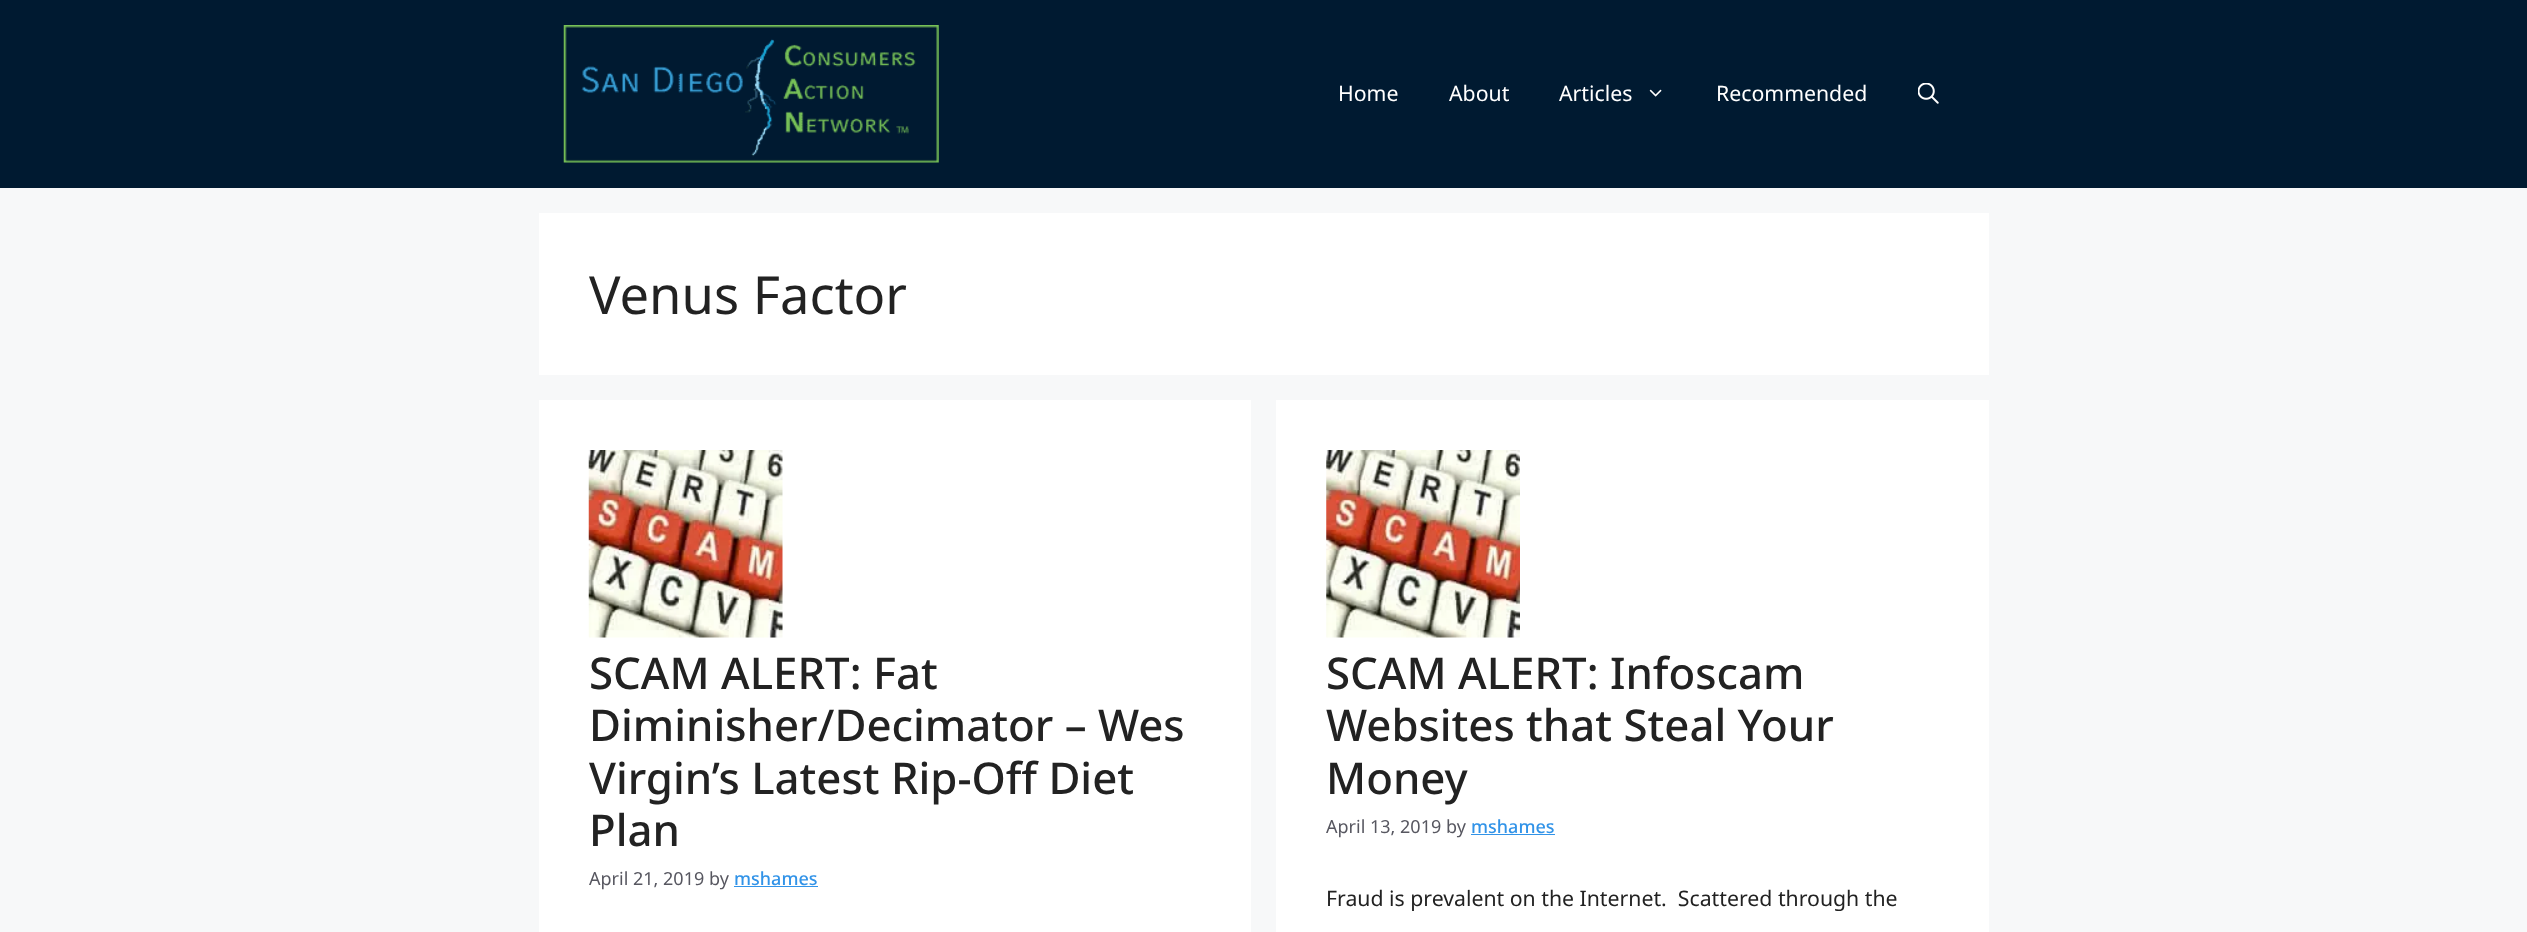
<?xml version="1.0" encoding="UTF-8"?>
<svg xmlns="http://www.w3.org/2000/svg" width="2527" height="932">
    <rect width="100%" height="100%" fill="#F7F8F9"/>
    <rect x="0" y="0" width="2527" height="188" fill="#001A31"/>
    <image x="563" y="25" width="376" height="138" href="img_01.png"/>
    <text x="1338" y="101" font-family="Noto Sans" font-size="21.25" fill="#FFFFFF">Home</text>
    <text x="1449" y="101" font-family="Noto Sans" font-size="21.25" fill="#FFFFFF">About</text>
    <text x="1559" y="101" font-family="Noto Sans" font-size="21.25" fill="#FFFFFF">Articles</text>
    <image x="1649" y="89" width="13" height="8" href="img_02.png"/>
    <text x="1716" y="101" font-family="Noto Sans" font-size="21.25" fill="#FFFFFF">Recommended</text>
    <image x="1918" y="83" width="21" height="21" href="img_03.png"/>
    <rect x="539" y="213" width="1450" height="162" fill="#FFFFFF"/>
    <text x="589" y="314" font-family="Noto Sans" font-size="52.5" fill="#222222">Venus Factor</text>
    <rect x="539" y="400" width="712" height="532" fill="#FFFFFF"/>
    <image x="588" y="450" width="195" height="188" href="img_04.png"/>
    <text font-family="Noto Sans" font-size="43.75" font-weight="500" fill="#222222">
        <tspan x="589" y="689">SCAM ALERT: Fat</tspan>
        <tspan x="589" y="741">Diminisher/Decimator – Wes</tspan>
        <tspan x="589" y="794">Virgin’s Latest Rip-Off Diet</tspan>
        <tspan x="589" y="846">Plan</tspan>
    </text>
    <text x="589" y="885" font-family="Noto Sans" font-size="18" fill="#575760">April 21, 2019 by</text>
    <text x="734" y="885" font-family="Noto Sans" font-size="18" font-weight="500" fill="#3193E8">mshames</text>
    <rect x="734" y="886" width="84" height="1" fill="#3193E8"/>
    <rect x="1276" y="400" width="713" height="532" fill="#FFFFFF"/>
    <image x="1326" y="450" width="194" height="188" href="img_05.png"/>
    <text font-family="Noto Sans" font-size="43.75" font-weight="500" fill="#222222">
        <tspan x="1326" y="689">SCAM ALERT: Infoscam</tspan>
        <tspan x="1326" y="741">Websites that Steal Your</tspan>
        <tspan x="1326" y="794">Money</tspan>
    </text>
    <text x="1326" y="833" font-family="Noto Sans" font-size="18" fill="#575760">April 13, 2019 by</text>
    <text x="1471" y="833" font-family="Noto Sans" font-size="18" font-weight="500" fill="#3193E8">mshames</text>
    <rect x="1471" y="834" width="84" height="1" fill="#3193E8"/>
    <text x="1326" y="906" font-family="Noto Sans" font-size="21.25" fill="#222222" xml:space="preserve">Fraud is prevalent on the Internet.  Scattered through the</text>
</svg>
